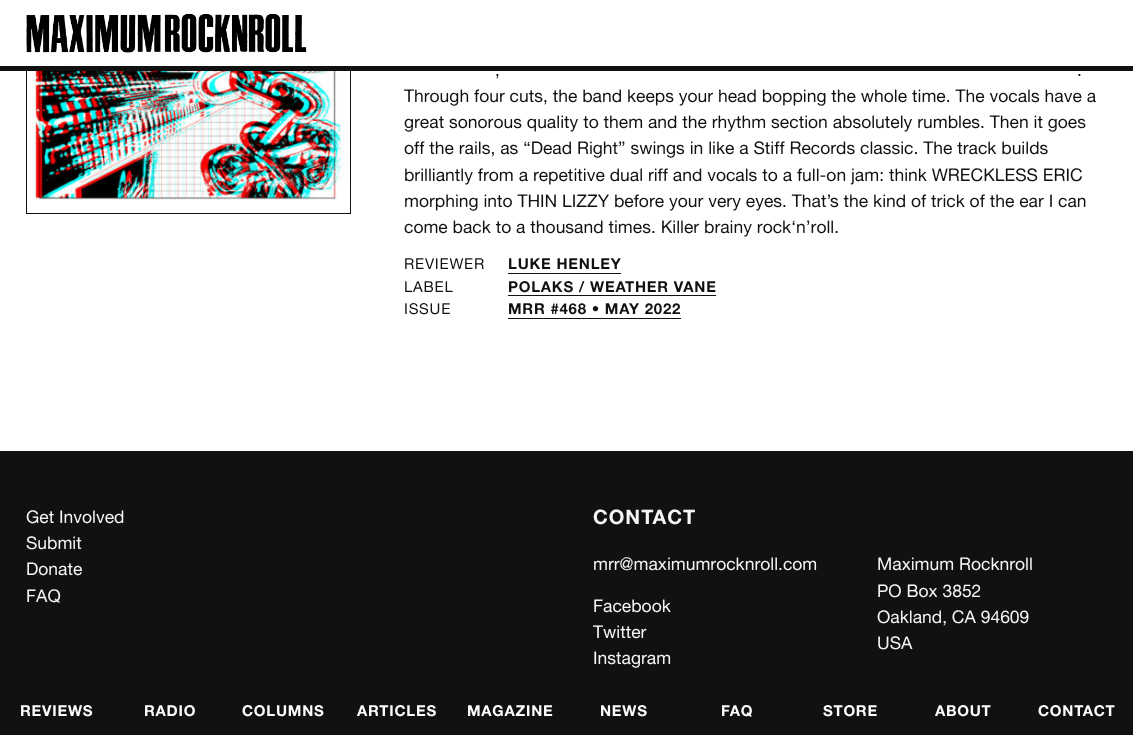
<?xml version="1.0" encoding="UTF-8"?>
<svg xmlns="http://www.w3.org/2000/svg" width="1133" height="735">
    <rect width="100%" height="100%" fill="#FFFFFF"/>
    <rect x="26.5" y="-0.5" width="324" height="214" fill="none" stroke="#111111"/>
    <image x="34" y="71" width="311" height="129" href="img_01.png"/>
    <text x="495" y="76" font-family="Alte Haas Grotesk" font-size="17.5" fill="#111111">,</text>
    <text x="1077" y="76" font-family="Alte Haas Grotesk" font-size="17.5" fill="#111111">.</text>
    <text font-family="Alte Haas Grotesk" font-size="17.5" fill="#111111">
        <tspan x="404" y="102">Through four cuts, the band keeps your head bopping the whole time. The vocals have a</tspan>
        <tspan x="404" y="128">great sonorous quality to them and the rhythm section absolutely rumbles. Then it goes</tspan>
        <tspan x="404" y="154">off the rails, as “Dead Right” swings in like a Stiff Records classic. The track builds</tspan>
        <tspan x="404" y="181">brilliantly from a repetitive dual riff and vocals to a full-on jam: think WRECKLESS ERIC</tspan>
        <tspan x="404" y="207">morphing into THIN LIZZY before your very eyes. That’s the kind of trick of the ear I can</tspan>
        <tspan x="404" y="233">come back to a thousand times. Killer brainy rock‘n’roll.</tspan>
    </text>
    <text x="404" y="269" font-family="Alte Haas Grotesk" font-size="15" letter-spacing="0.75" fill="#111111">REVIEWER</text>
    <text x="508" y="269" font-family="Alte Haas Grotesk" font-size="15" font-weight="700" letter-spacing="0.75" fill="#111111">LUKE HENLEY</text>
    <rect x="508" y="273" width="113" height="1" fill="#111111"/>
    <text x="404" y="292" font-family="Alte Haas Grotesk" font-size="15" letter-spacing="0.75" fill="#111111">LABEL</text>
    <text x="508" y="292" font-family="Alte Haas Grotesk" font-size="15" font-weight="700" letter-spacing="0.75" fill="#111111">POLAKS / WEATHER VANE</text>
    <rect x="508" y="295" width="208" height="1" fill="#111111"/>
    <text x="404" y="314" font-family="Alte Haas Grotesk" font-size="15" letter-spacing="0.75" fill="#111111">ISSUE</text>
    <text x="508" y="314" font-family="Alte Haas Grotesk" font-size="15" font-weight="700" letter-spacing="0.75" fill="#111111">MRR #468 • MAY 2022</text>
    <rect x="508" y="318" width="173" height="1" fill="#111111"/>
    <rect x="0" y="451" width="1133" height="284" fill="#111111"/>
    <text font-family="Alte Haas Grotesk" font-size="17.5" fill="#F5F5F5">
        <tspan x="26" y="523">Get Involved</tspan>
        <tspan x="26" y="549">Submit</tspan>
        <tspan x="26" y="575">Donate</tspan>
        <tspan x="26" y="602">FAQ</tspan>
    </text>
    <text x="593" y="524" font-family="Alte Haas Grotesk" font-size="20" font-weight="700" letter-spacing="1" fill="#F5F5F5">CONTACT</text>
    <text x="593" y="570" font-family="Alte Haas Grotesk" font-size="17.5" fill="#F5F5F5">mrr@maximumrocknroll.com</text>
    <text font-family="Alte Haas Grotesk" font-size="17.5" fill="#F5F5F5">
        <tspan x="593" y="612">Facebook</tspan>
        <tspan x="593" y="638">Twitter</tspan>
        <tspan x="593" y="664">Instagram</tspan>
    </text>
    <text font-family="Alte Haas Grotesk" font-size="17.5" fill="#F5F5F5">
        <tspan x="877" y="570">Maximum Rocknroll</tspan>
        <tspan x="877" y="597">PO Box 3852</tspan>
        <tspan x="877" y="623">Oakland, CA 94609</tspan>
        <tspan x="877" y="649">USA</tspan>
    </text>
    <rect x="26" y="0" width="325" height="66" fill="#FFFFFF"/>
    <rect x="0" y="66" width="1133" height="5" fill="#111111"/>
    <image x="26" y="13" width="281" height="40" href="img_02.png"/>
    <text x="20" y="716" font-family="Alte Haas Grotesk" font-size="15" font-weight="700" letter-spacing="0.75" fill="#FCFCFC">REVIEWS</text>
    <text x="144" y="716" font-family="Alte Haas Grotesk" font-size="15" font-weight="700" letter-spacing="0.75" fill="#FCFCFC">RADIO</text>
    <text x="242" y="716" font-family="Alte Haas Grotesk" font-size="15" font-weight="700" letter-spacing="0.75" fill="#FCFCFC">COLUMNS</text>
    <text x="357" y="716" font-family="Alte Haas Grotesk" font-size="15" font-weight="700" letter-spacing="0.75" fill="#FCFCFC">ARTICLES</text>
    <text x="467" y="716" font-family="Alte Haas Grotesk" font-size="15" font-weight="700" letter-spacing="0.75" fill="#FCFCFC">MAGAZINE</text>
    <text x="600" y="716" font-family="Alte Haas Grotesk" font-size="15" font-weight="700" letter-spacing="0.75" fill="#FCFCFC">NEWS</text>
    <text x="721" y="716" font-family="Alte Haas Grotesk" font-size="15" font-weight="700" letter-spacing="0.75" fill="#FCFCFC">FAQ</text>
    <text x="823" y="716" font-family="Alte Haas Grotesk" font-size="15" font-weight="700" letter-spacing="0.75" fill="#FCFCFC">STORE</text>
    <text x="935" y="716" font-family="Alte Haas Grotesk" font-size="15" font-weight="700" letter-spacing="0.75" fill="#FCFCFC">ABOUT</text>
    <text x="1038" y="716" font-family="Alte Haas Grotesk" font-size="15" font-weight="700" letter-spacing="0.75" fill="#FCFCFC">CONTACT</text>
</svg>
